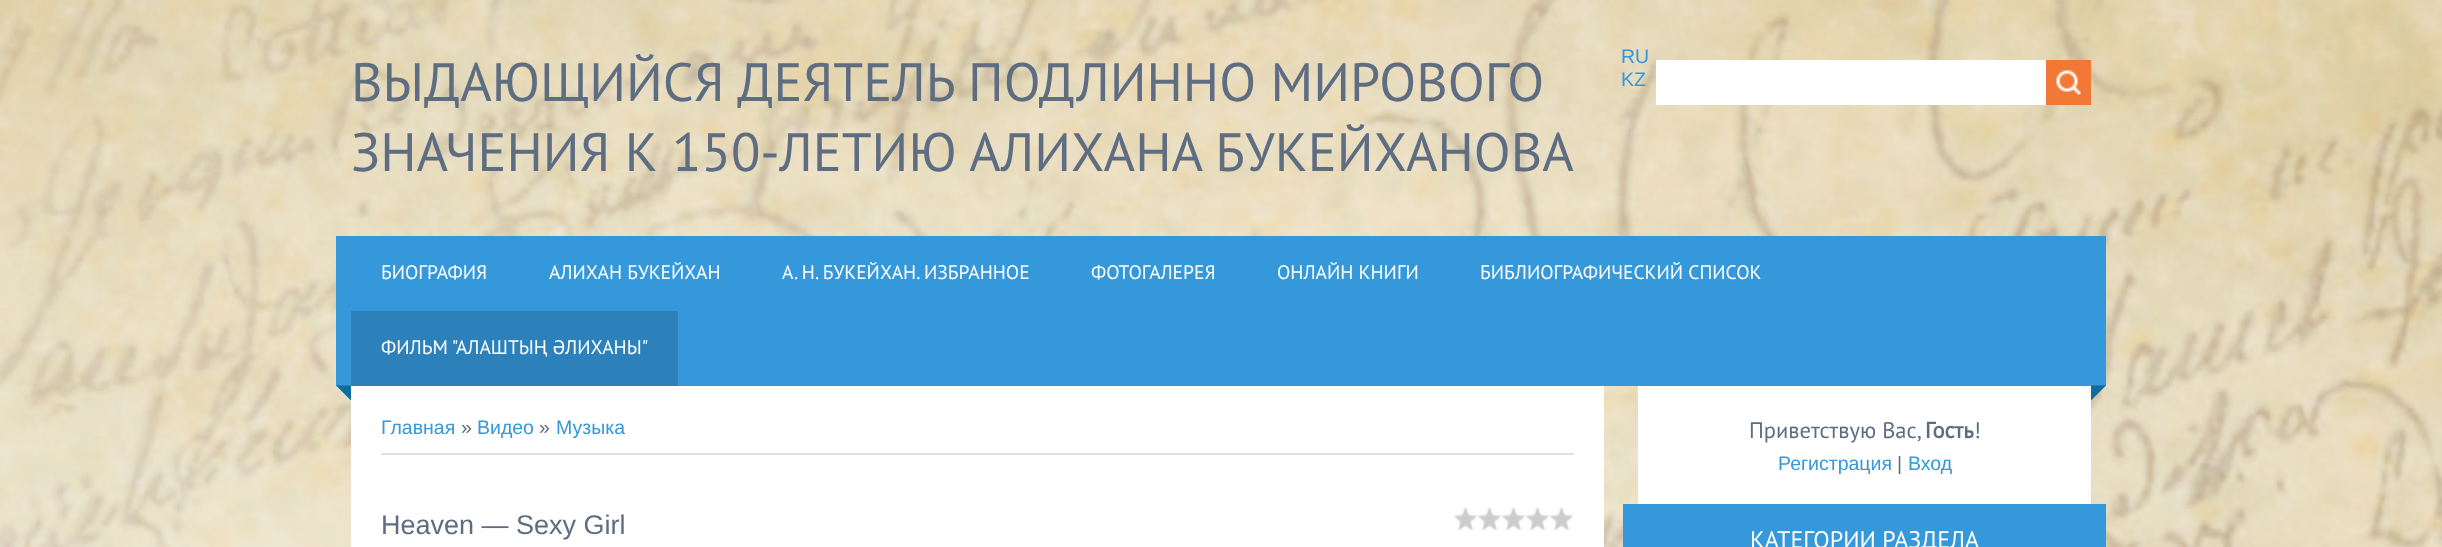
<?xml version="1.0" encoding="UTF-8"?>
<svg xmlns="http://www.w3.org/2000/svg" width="2442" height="547">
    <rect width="100%" height="100%" fill="#FFFFFF"/>
    <image x="0" y="0" width="2442" height="547" href="img_01.png"/>
    <text font-family="PT Sans" font-size="54" fill="#5E6D81">
        <tspan x="351" y="101">ВЫДАЮЩИЙСЯ ДЕЯТЕЛЬ ПОДЛИННО МИРОВОГО</tspan>
        <tspan x="351" y="171">ЗНАЧЕНИЯ К 150-ЛЕТИЮ АЛИХАНА БУКЕЙХАНОВА</tspan>
    </text>
    <text x="1621" y="63" font-family="Liberation Sans" font-size="19.5" fill="#3498DB">RU</text>
    <rect x="1656" y="60" width="390" height="45" fill="#FFFFFF"/>
    <rect x="2046" y="60" width="45" height="45" fill="#F27935"/>
    <image x="2056" y="70" width="25" height="25" href="img_02.png"/>
    <text x="1621" y="86" font-family="Liberation Sans" font-size="19.5" fill="#3498DB">KZ</text>
    <rect x="336" y="236" width="1770" height="150" fill="#3498DB"/>
    <text x="381" y="279" font-family="PT Sans" font-size="19.5" fill="#FFFFFF">БИОГРАФИЯ</text>
    <text x="549" y="279" font-family="PT Sans" font-size="19.5" fill="#FFFFFF">АЛИХАН БУКЕЙХАН</text>
    <text x="782" y="279" font-family="PT Sans" font-size="19.5" fill="#FFFFFF">А. Н. БУКЕЙХАН. ИЗБРАННОЕ</text>
    <text x="1091" y="279" font-family="PT Sans" font-size="19.5" fill="#FFFFFF">ФОТОГАЛЕРЕЯ</text>
    <text x="1277" y="279" font-family="PT Sans" font-size="19.5" fill="#FFFFFF">ОНЛАЙН КНИГИ</text>
    <text x="1480" y="279" font-family="PT Sans" font-size="19.5" fill="#FFFFFF">БИБЛИОГРАФИЧЕСКИЙ СПИСОК</text>
    <rect x="351" y="311" width="327" height="75" fill="#2C81BA"/>
    <text x="381" y="354" font-family="PT Sans" font-size="19.5" fill="#FFFFFF">ФИЛЬМ "АЛАШТЫҢ ӘЛИХАНЫ"</text>
    <path d="M 336 385.5 H 351 V 400.5 Z" fill="#0F6D9E"/>
    <path d="M 2091 385.5 H 2106 L 2091 400.5 Z" fill="#0F6D9E"/>
    <rect x="351" y="386" width="1253" height="161" fill="#FFFFFF"/>
    <text x="381" y="434" font-family="Liberation Sans" font-size="19.5" fill="#3498DB">Главная</text>
    <text x="461" y="434" font-family="Liberation Sans" font-size="19.5" fill="#5E6D81">»</text>
    <text x="477" y="434" font-family="Liberation Sans" font-size="19.5" fill="#3498DB">Видео</text>
    <text x="539" y="434" font-family="Liberation Sans" font-size="19.5" fill="#5E6D81">»</text>
    <text x="556" y="434" font-family="Liberation Sans" font-size="19.5" fill="#3498DB">Музыка</text>
    <rect x="381" y="453" width="1193" height="2" fill="#DBE1E8"/>
    <text x="381" y="534" font-family="Liberation Sans" font-size="27" fill="#5E6D81">Heaven — Sexy Girl</text>
    <image x="1453" y="507" width="121" height="24" href="img_03.png"/>
    <rect x="1638" y="386" width="453" height="118" fill="#FFFFFF"/>
    <text x="1749" y="438" font-family="PT Sans" font-size="22.5" fill="#5E6D81">Приветствую Вас,</text>
    <text x="1925" y="438" font-family="PT Sans" font-size="22.5" font-weight="700" fill="#5E6D81">Гость</text>
    <text x="1974" y="438" font-family="PT Sans" font-size="22.5" fill="#5E6D81">!</text>
    <text x="1778" y="470" font-family="Liberation Sans" font-size="19.5" fill="#3498DB">Регистрация</text>
    <text x="1897" y="470" font-family="Liberation Sans" font-size="19.5" fill="#5E6D81">|</text>
    <text x="1908" y="470" font-family="Liberation Sans" font-size="19.5" fill="#3498DB">Вход</text>
    <rect x="1623" y="504" width="483" height="43" fill="#3498DB"/>
    <text x="1750" y="548" font-family="PT Sans" font-size="24" fill="#FFFFFF">КАТЕГОРИИ РАЗДЕЛА</text>
</svg>
